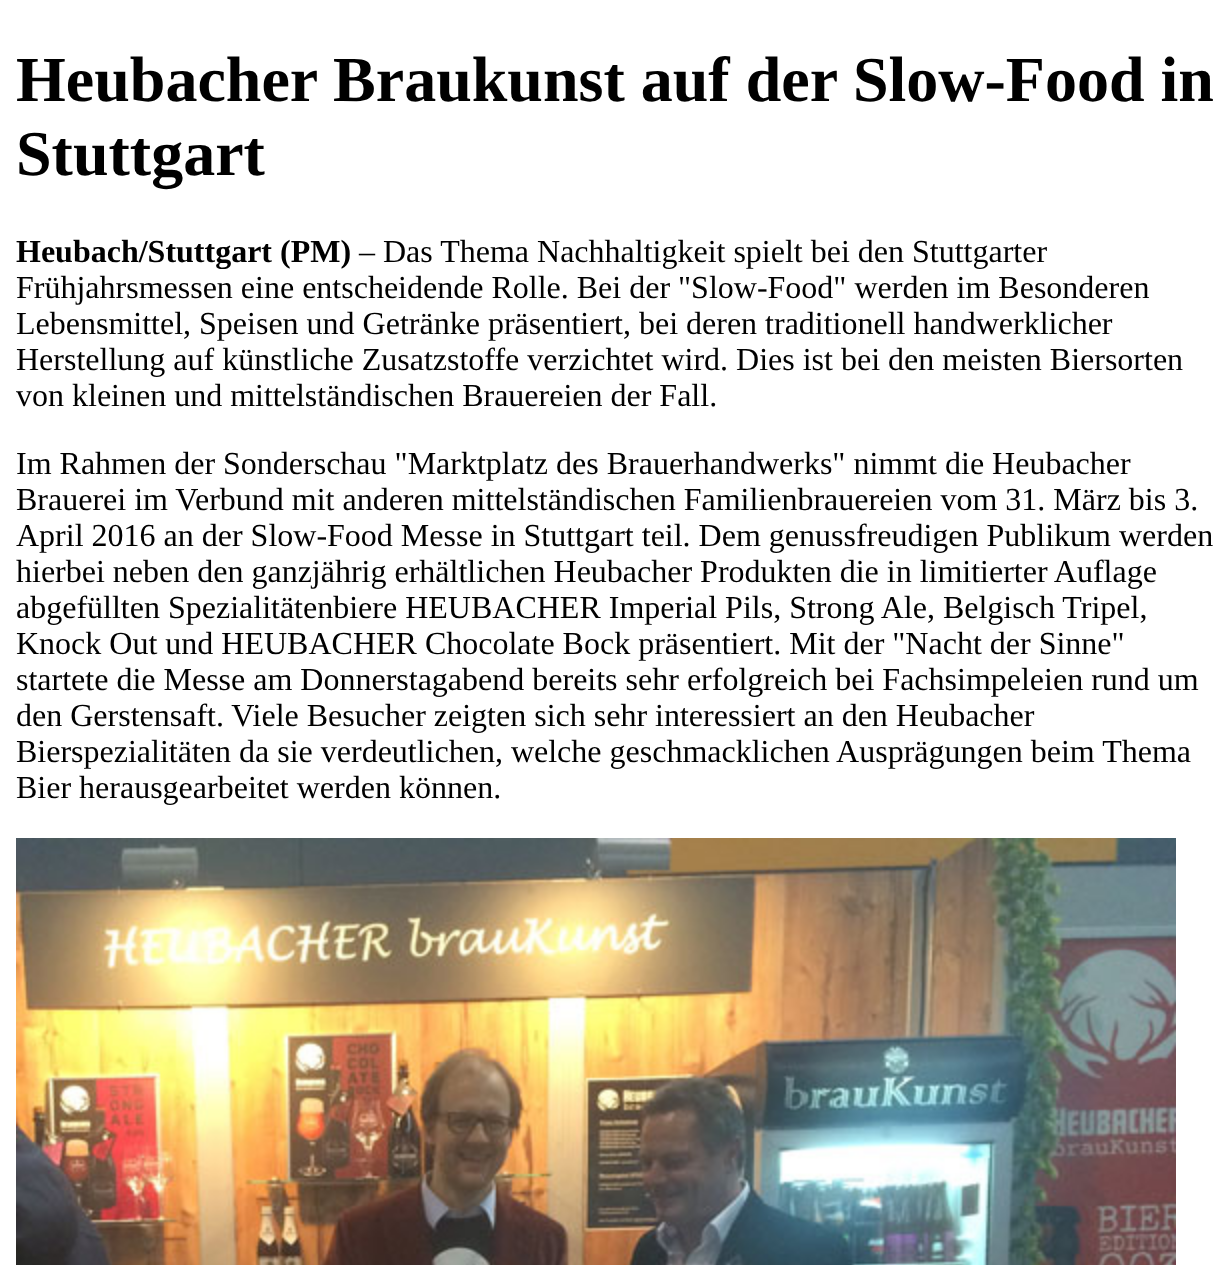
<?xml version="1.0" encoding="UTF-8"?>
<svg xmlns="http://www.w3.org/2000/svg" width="1229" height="1265">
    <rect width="100%" height="100%" fill="#FFFFFF"/>
    <text font-family="Liberation Serif" font-size="64" font-weight="700" fill="#000000">
        <tspan x="16" y="101">Heubacher Braukunst auf der Slow-Food in</tspan>
        <tspan x="16" y="175">Stuttgart</tspan>
    </text>
    <text x="16" y="262" font-family="Liberation Serif" font-size="32" font-weight="700" fill="#000000">Heubach/Stuttgart (PM)</text>
    <text x="359" y="262" font-family="Liberation Serif" font-size="32" fill="#000000">– Das Thema Nachhaltigkeit spielt bei den Stuttgarter</text>
    <text font-family="Liberation Serif" font-size="32" fill="#000000">
        <tspan x="16" y="298">Frühjahrsmessen eine entscheidende Rolle. Bei der "Slow-Food" werden im Besonderen</tspan>
        <tspan x="16" y="334">Lebensmittel, Speisen und Getränke präsentiert, bei deren traditionell handwerklicher</tspan>
        <tspan x="16" y="370">Herstellung auf künstliche Zusatzstoffe verzichtet wird. Dies ist bei den meisten Biersorten</tspan>
        <tspan x="16" y="406">von kleinen und mittelständischen Brauereien der Fall.</tspan>
    </text>
    <text font-family="Liberation Serif" font-size="32" fill="#000000">
        <tspan x="16" y="474">Im Rahmen der Sonderschau "Marktplatz des Brauerhandwerks" nimmt die Heubacher</tspan>
        <tspan x="16" y="510">Brauerei im Verbund mit anderen mittelständischen Familienbrauereien vom 31. März bis 3.</tspan>
        <tspan x="16" y="546">April 2016 an der Slow-Food Messe in Stuttgart teil. Dem genussfreudigen Publikum werden</tspan>
        <tspan x="16" y="582">hierbei neben den ganzjährig erhältlichen Heubacher Produkten die in limitierter Auflage</tspan>
        <tspan x="16" y="618">abgefüllten Spezialitätenbiere HEUBACHER Imperial Pils, Strong Ale, Belgisch Tripel,</tspan>
        <tspan x="16" y="654">Knock Out und HEUBACHER Chocolate Bock präsentiert. Mit der "Nacht der Sinne"</tspan>
        <tspan x="16" y="690">startete die Messe am Donnerstagabend bereits sehr erfolgreich bei Fachsimpeleien rund um</tspan>
        <tspan x="16" y="726">den Gerstensaft. Viele Besucher zeigten sich sehr interessiert an den Heubacher</tspan>
        <tspan x="16" y="762">Bierspezialitäten da sie verdeutlichen, welche geschmacklichen Ausprägungen beim Thema</tspan>
        <tspan x="16" y="798">Bier herausgearbeitet werden können.</tspan>
    </text>
    <image x="16" y="838" width="1160" height="427" href="img_01.png"/>
</svg>
